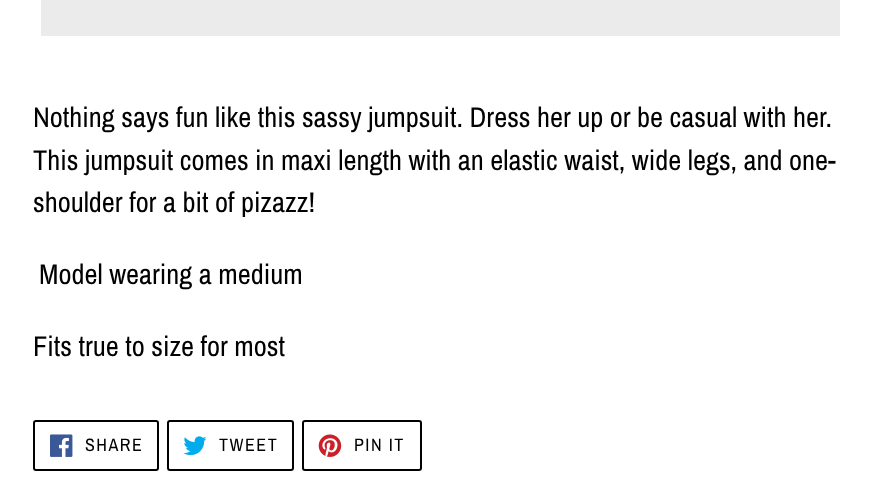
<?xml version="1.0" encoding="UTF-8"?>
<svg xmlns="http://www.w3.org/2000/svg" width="880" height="503">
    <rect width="100%" height="100%" fill="#FFFFFF"/>
    <rect x="41" y="0" width="799" height="36" fill="#EBEBEB"/>
    <text font-family="Archivo Narrow" font-size="28.5" fill="#000000">
        <tspan x="33" y="127">Nothing says fun like this sassy jumpsuit. Dress her up or be casual with her.</tspan>
        <tspan x="33" y="170">This jumpsuit comes in maxi length with an elastic waist, wide legs, and one-</tspan>
        <tspan x="33" y="212">shoulder for a bit of pizazz!</tspan>
    </text>
    <text x="39" y="284" font-family="Archivo Narrow" font-size="28.5" fill="#000000">Model wearing a medium</text>
    <text x="33" y="356" font-family="Archivo Narrow" font-size="28.5" fill="#000000">Fits true to size for most</text>
    <rect x="34" y="421" width="124" height="49" rx="2" fill="none" stroke="#000000" stroke-width="2"/>
    <image x="50" y="434" width="23" height="23" href="img_01.png"/>
    <text x="85" y="451" font-family="Archivo Narrow" font-size="18" letter-spacing="1.5" fill="#000000">SHARE</text>
    <rect x="168" y="421" width="125" height="49" rx="2" fill="none" stroke="#000000" stroke-width="2"/>
    <image x="183" y="436" width="24" height="20" href="img_02.png"/>
    <text x="219" y="451" font-family="Archivo Narrow" font-size="18" letter-spacing="1.5" fill="#000000">TWEET</text>
    <rect x="303" y="421" width="118" height="49" rx="2" fill="none" stroke="#000000" stroke-width="2"/>
    <image x="318" y="434" width="24" height="23" href="img_03.png"/>
    <text x="354" y="451" font-family="Archivo Narrow" font-size="18" letter-spacing="1.5" fill="#000000">PIN IT</text>
</svg>
